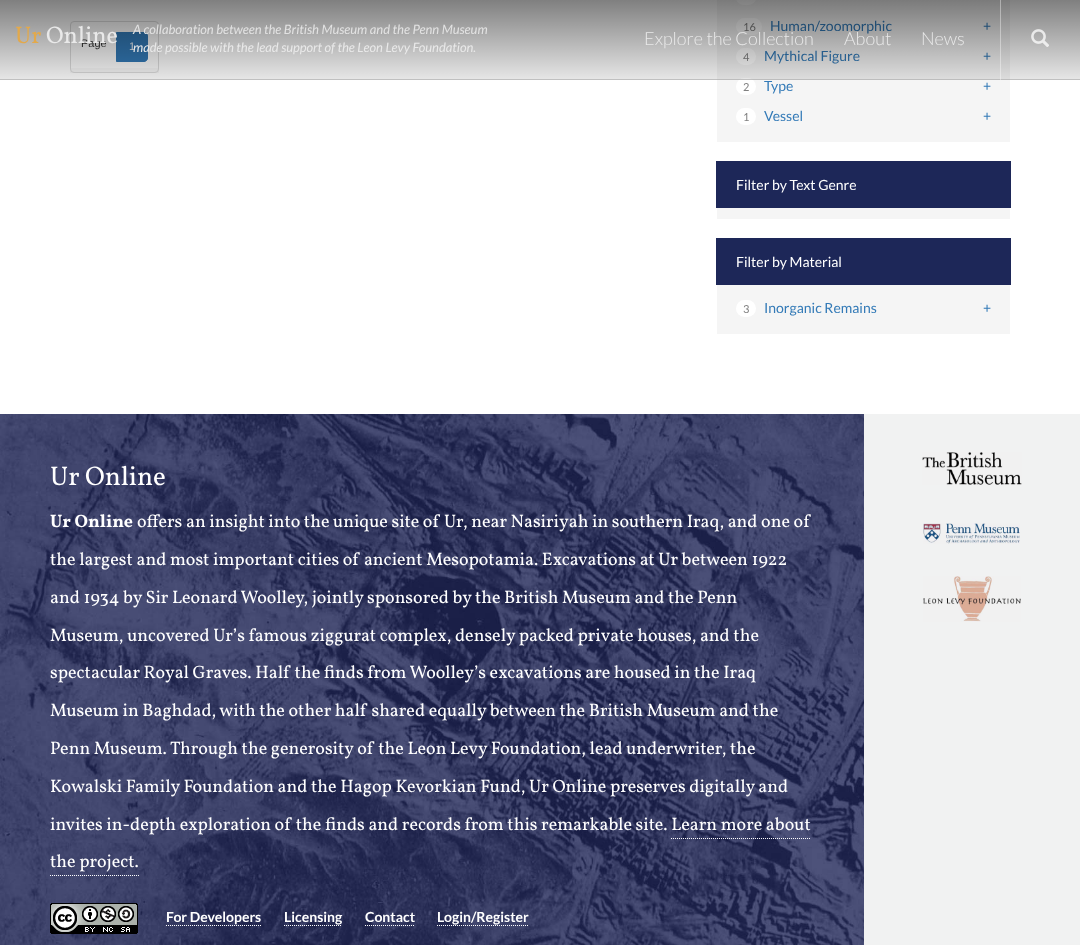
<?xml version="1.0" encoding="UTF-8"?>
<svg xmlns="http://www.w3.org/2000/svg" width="1080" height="945">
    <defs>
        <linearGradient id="g1" gradientUnits="userSpaceOnUse" x1="540" y1="0" x2="540" y2="79"><stop offset="0" stop-color="#000000" stop-opacity="0.5"/><stop offset="1" stop-color="#000000" stop-opacity="0.1"/></linearGradient>
        <linearGradient id="g2" gradientUnits="userSpaceOnUse" x1="540" y1="79" x2="540" y2="158"><stop offset="0" stop-color="#000000" stop-opacity="0.5"/><stop offset="1" stop-color="#000000" stop-opacity="0.1"/></linearGradient>
    </defs>
    <rect width="100%" height="100%" fill="#FFFFFF"/>
    <rect x="70" y="68" width="89" height="5" fill="#F8F8F8"/>
    <rect x="70.5" y="21.5" width="88" height="51" rx="3.5" fill="none" stroke="#DDDDDD"/>
    <text x="81" y="47" font-family="Liberation Sans" font-size="11" fill="#333333">Page</text>
    <path d="M 116.5 32.5 H 144 C 146 32.5 147.5 34 147.5 36 V 58 C 147.5 60 146 61.5 144 61.5 H 116.5 Z" fill="#337AB7" stroke="#337AB7"/>
    <text x="129" y="50" font-family="Liberation Sans" font-size="11" fill="#FFFFFF">1</text>
    <rect x="717" y="0" width="293" height="142" fill="#F5F5F5"/>
    <rect x="736" y="-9" width="20" height="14" rx="8.5" fill="#FFFFFF"/>
    <rect x="736" y="18" width="26" height="17" rx="8.5" fill="#FFFFFF"/>
    <text x="743" y="31" font-family="Lato" font-size="11" fill="#808080">16</text>
    <text x="770" y="31" font-family="Lato" font-size="14" fill="#337AB7">Human/zoomorphic</text>
    <text x="983" y="31" font-family="Lato" font-size="14" fill="#337AB7">+</text>
    <rect x="736" y="48" width="20" height="17" rx="8.5" fill="#FFFFFF"/>
    <text x="743" y="61" font-family="Lato" font-size="11" fill="#808080">4</text>
    <text x="764" y="61" font-family="Lato" font-size="14" fill="#337AB7">Mythical Figure</text>
    <text x="983" y="61" font-family="Lato" font-size="14" fill="#337AB7">+</text>
    <rect x="736" y="78" width="20" height="17" rx="8.5" fill="#FFFFFF"/>
    <text x="743" y="91" font-family="Lato" font-size="11" fill="#808080">2</text>
    <text x="764" y="91" font-family="Lato" font-size="14" fill="#337AB7">Type</text>
    <text x="983" y="91" font-family="Lato" font-size="14" fill="#337AB7">+</text>
    <rect x="736" y="108" width="20" height="17" rx="8.5" fill="#FFFFFF"/>
    <text x="743" y="121" font-family="Lato" font-size="11" fill="#808080">1</text>
    <text x="764" y="121" font-family="Lato" font-size="14" fill="#337AB7">Vessel</text>
    <text x="983" y="121" font-family="Lato" font-size="14" fill="#337AB7">+</text>
    <rect x="717" y="208" width="293" height="11" fill="#F5F5F5"/>
    <rect x="716" y="161" width="295" height="47" fill="#1D2758"/>
    <text x="736" y="190" font-family="Lato" font-size="14" fill="#FFFFFF">Filter by Text Genre</text>
    <rect x="717" y="285" width="293" height="49" fill="#F5F5F5"/>
    <rect x="716" y="238" width="295" height="47" fill="#1D2758"/>
    <text x="736" y="267" font-family="Lato" font-size="14" fill="#FFFFFF">Filter by Material</text>
    <rect x="736" y="300" width="20" height="17" rx="8.5" fill="#FFFFFF"/>
    <text x="743" y="313" font-family="Lato" font-size="11" fill="#808080">3</text>
    <text x="764" y="313" font-family="Lato" font-size="14" fill="#337AB7">Inorganic Remains</text>
    <text x="983" y="313" font-family="Lato" font-size="14" fill="#337AB7">+</text>
    <rect x="0" y="0" width="1080" height="79" fill="url(#g1)"/>
    <rect x="0" y="79" width="1080" height="1" fill="url(#g2)"/>
    <rect x="0" y="79" width="1080" height="1" fill="#FFFFFF" fill-opacity="0.5"/>
    <text x="15" y="43" font-family="Vollkorn" font-size="24" fill="#E3A94B">Ur</text>
    <text x="46" y="43" font-family="Vollkorn" font-size="24" fill="#E9E9E9">Online</text>
    <text x="133" y="34" font-family="Lato" font-size="13" font-style="italic" fill="#E2E2E2">A collaboration between the British Museum and the Penn Museum</text>
    <text x="133" y="52" font-family="Lato" font-size="13" font-style="italic" fill="#E9E9E9">made possible with the lead support of the Leon Levy Foundation.</text>
    <text x="644" y="45" font-family="Lato" font-size="18" font-weight="300" fill="#E9E9E9">Explore the Collection</text>
    <text x="844" y="45" font-family="Lato" font-size="18" font-weight="300" fill="#E9E9E9">About</text>
    <text x="921" y="45" font-family="Lato" font-size="18" font-weight="300" fill="#E9E9E9">News</text>
    <rect x="1000" y="0" width="1" height="80" fill="#FFFFFF" fill-opacity="0.38"/>
    <image x="1031" y="29" width="18" height="18" href="img_01.png"/>
    <image x="0" y="414" width="864" height="531" href="img_02.png"/>
    <text x="50" y="485" font-family="Vollkorn" font-size="27" fill="#FFFFFF">Ur Online</text>
    <text x="50" y="527" font-family="Vollkorn" font-size="18" font-weight="700" fill="#FFFFFF">Ur Online</text>
    <text x="137" y="527" font-family="Vollkorn" font-size="18" fill="#FFFFFF">offers an insight into the unique site of Ur, near Nasiriyah in southern Iraq, and one of</text>
    <text x="50" y="565" font-family="Vollkorn" font-size="18" fill="#FFFFFF">the largest and most important cities of ancient Mesopotamia. Excavations at Ur between 1922</text>
    <text x="50" y="603" font-family="Vollkorn" font-size="18" fill="#FFFFFF">and 1934 by Sir Leonard Woolley, jointly sponsored by the British Museum and the Penn</text>
    <text x="50" y="641" font-family="Vollkorn" font-size="18" fill="#FFFFFF">Museum, uncovered Ur’s famous ziggurat complex, densely packed private houses, and the</text>
    <text x="50" y="678" font-family="Vollkorn" font-size="18" fill="#FFFFFF">spectacular Royal Graves. Half the finds from Woolley’s excavations are housed in the Iraq</text>
    <text x="50" y="716" font-family="Vollkorn" font-size="18" fill="#FFFFFF">Museum in Baghdad, with the other half shared equally between the British Museum and the</text>
    <text x="50" y="754" font-family="Vollkorn" font-size="18" fill="#FFFFFF">Penn Museum. Through the generosity of the Leon Levy Foundation, lead underwriter, the</text>
    <text x="50" y="792" font-family="Vollkorn" font-size="18" fill="#FFFFFF">Kowalski Family Foundation and the Hagop Kevorkian Fund, Ur Online preserves digitally and</text>
    <text x="50" y="830" font-family="Vollkorn" font-size="18" fill="#FFFFFF">invites in-depth exploration of the finds and records from this remarkable site. Learn more about</text>
    <text x="50" y="867" font-family="Vollkorn" font-size="18" fill="#FFFFFF">the project.</text>
    <path d="M 671 838.5 H 811" fill="none" stroke="#FFFFFF" stroke-dasharray="1 1"/>
    <path d="M 50 875.5 H 139" fill="none" stroke="#FFFFFF" stroke-dasharray="1 1"/>
    <image x="50" y="903" width="88" height="31" href="img_03.png"/>
    <text x="166" y="922" font-family="Lato" font-size="14" font-weight="700" fill="#FFFFFF">For Developers</text>
    <path d="M 166 925.5 H 261" fill="none" stroke="#FFFFFF" stroke-dasharray="1 1"/>
    <text x="284" y="922" font-family="Lato" font-size="14" font-weight="700" fill="#FFFFFF">Licensing</text>
    <path d="M 284 925.5 H 342" fill="none" stroke="#FFFFFF" stroke-dasharray="1 1"/>
    <text x="365" y="922" font-family="Lato" font-size="14" font-weight="700" fill="#FFFFFF">Contact</text>
    <path d="M 365 925.5 H 415" fill="none" stroke="#FFFFFF" stroke-dasharray="1 1"/>
    <text x="437" y="922" font-family="Lato" font-size="14" font-weight="700" fill="#FFFFFF">Login/Register</text>
    <path d="M 437 925.5 H 529" fill="none" stroke="#FFFFFF" stroke-dasharray="1 1"/>
    <rect x="864" y="414" width="216" height="531" fill="#F1F2F2"/>
    <image x="922" y="452" width="100" height="33" href="img_04.png"/>
    <image x="923" y="523" width="97" height="21" href="img_05.png"/>
    <image x="923" y="576" width="98" height="46" href="img_06.png"/>
</svg>
